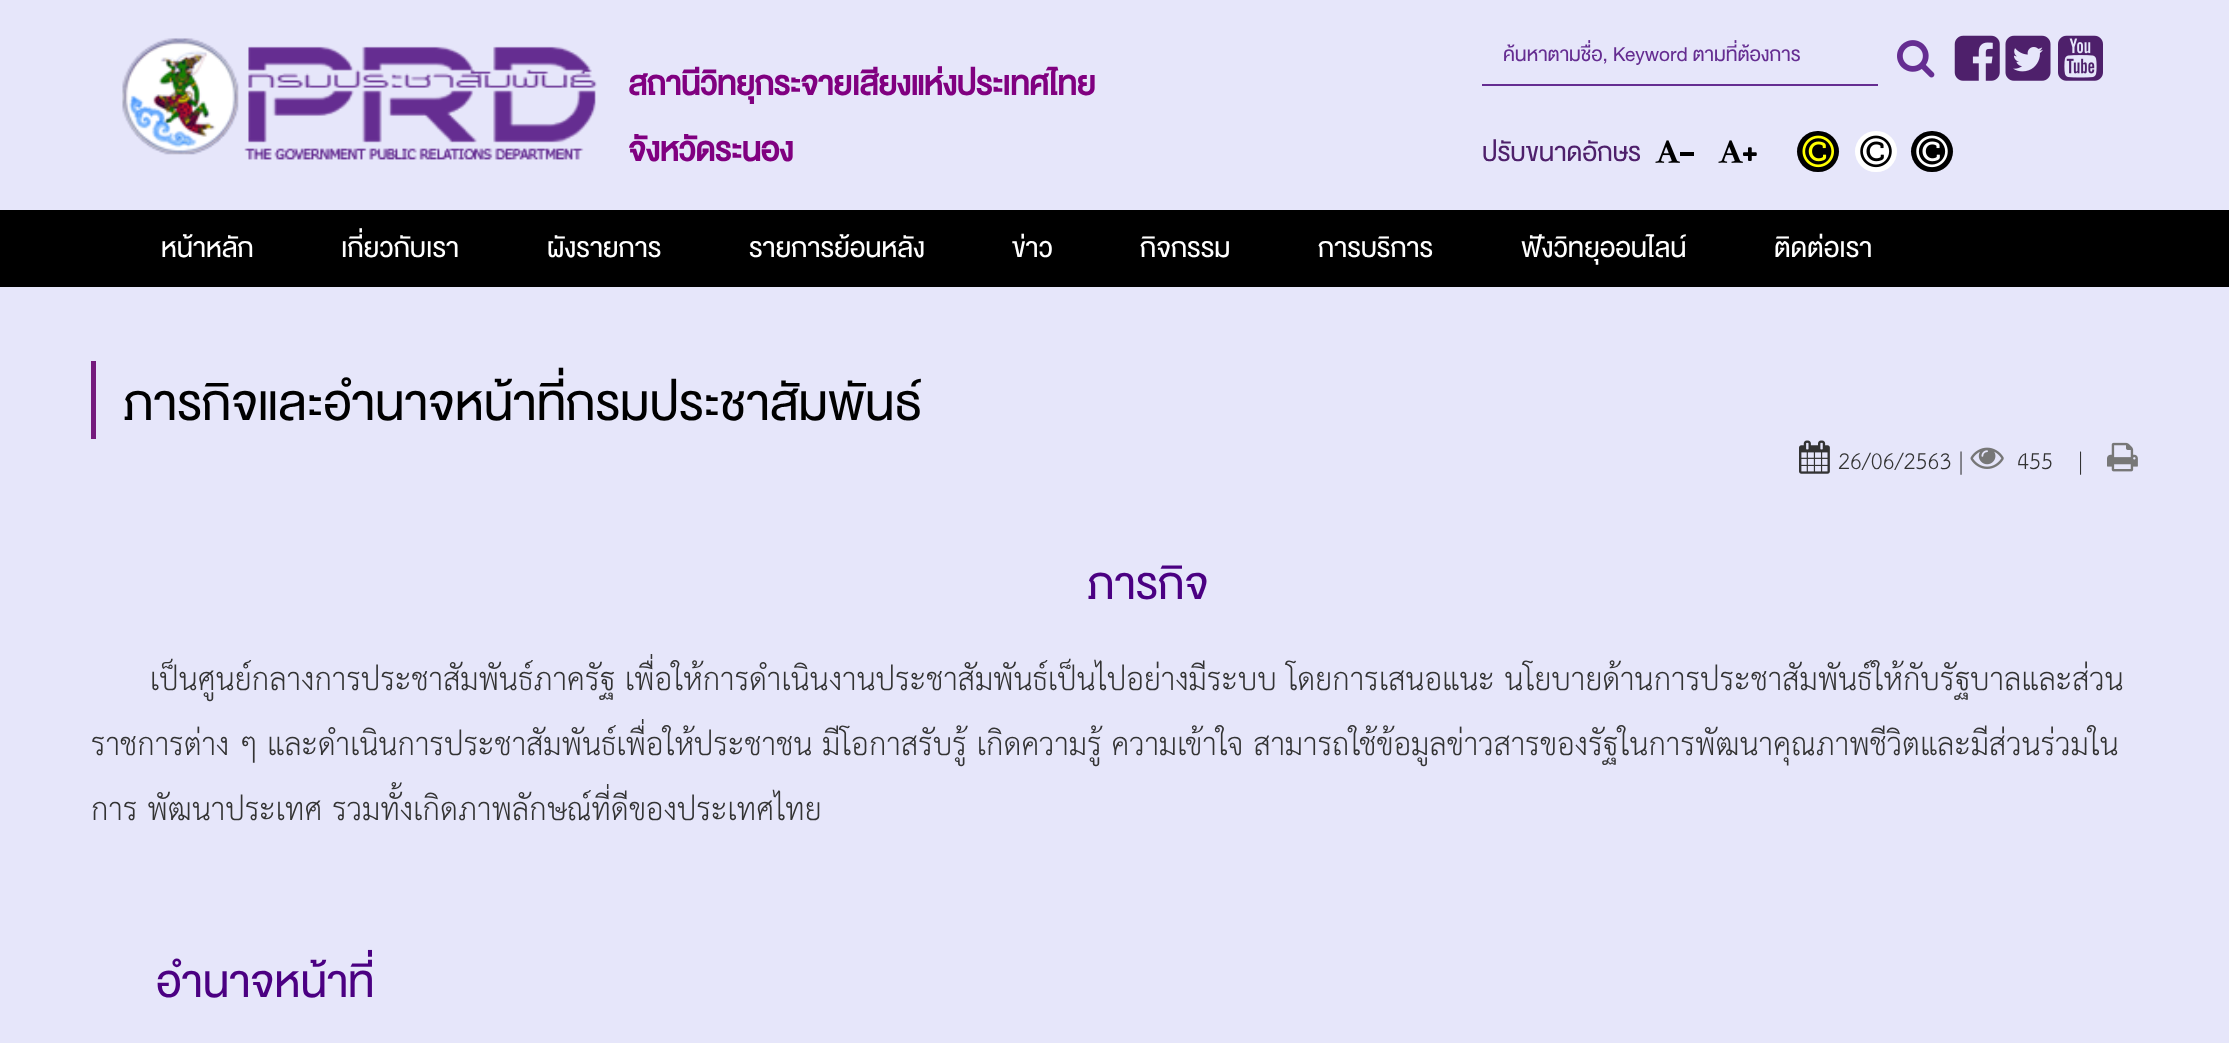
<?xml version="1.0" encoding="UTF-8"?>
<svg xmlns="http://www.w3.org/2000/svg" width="2229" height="1043">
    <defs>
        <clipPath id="clip1"><rect x="1503" y="39" width="354" height="33"/></clipPath>
    </defs>
    <rect width="100%" height="100%" fill="#E6E6FA"/>
    <image x="122" y="38" width="475" height="122" href="img_01.png"/>
    <text font-family="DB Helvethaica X" font-size="45.5" font-weight="700" fill="#800080">
        <tspan x="628" y="95">สถานีวิทยุกระจายเสียงแห่งประเทศไทย</tspan>
        <tspan x="628" y="161">จังหวัดระนอง</tspan>
    </text>
    <rect x="1482" y="84" width="396" height="2" fill="#652D91"/>
    <g clip-path="url(#clip1)">
        <text x="1503" y="61" font-family="DB Helvethaica X" font-size="28" fill="#652D91">ค้นหาตามชื่อ, Keyword ตามที่ต้องการ</text>
    </g>
    <image x="1897" y="40" width="38" height="38" href="img_02.png"/>
    <image x="1954" y="35" width="46" height="46" href="img_03.png"/>
    <image x="2005" y="35" width="46" height="46" href="img_04.png"/>
    <image x="2058" y="35" width="45" height="46" href="img_05.png"/>
    <text x="1482" y="161" font-family="DB Helvethaica X" font-size="36.75" fill="#4E206B">ปรับขนาดอักษร</text>
    <image x="1655" y="140" width="25" height="23" href="img_06.png"/>
    <rect x="1680" y="152" width="14" height="4" fill="#000000"/>
    <image x="1718" y="140" width="25" height="23" href="img_06.png"/>
    <image x="1743" y="147" width="14" height="14" href="img_07.png"/>
    <rect x="1797" y="131" width="42" height="41" rx="20.5" fill="#000000"/>
    <image x="1802" y="135" width="32" height="33" href="img_08.png"/>
    <rect x="1855" y="131" width="42" height="41" rx="20.5" fill="#FFFFFF"/>
    <image x="1860" y="135" width="32" height="33" href="img_09.png"/>
    <rect x="1911" y="131" width="42" height="41" rx="20.5" fill="#000000"/>
    <image x="1916" y="135" width="32" height="33" href="img_10.png"/>
    <rect x="0" y="210" width="2229" height="77" fill="#000000"/>
    <text x="161" y="257" font-family="DB Helvethaica X" font-size="38.5" fill="#FFFFFF">หน้าหลัก</text>
    <text x="341" y="257" font-family="DB Helvethaica X" font-size="38.5" fill="#FFFFFF">เกี่ยวกับเรา</text>
    <text x="547" y="257" font-family="DB Helvethaica X" font-size="38.5" fill="#FFFFFF">ผังรายการ</text>
    <text x="749" y="257" font-family="DB Helvethaica X" font-size="38.5" fill="#FFFFFF">รายการย้อนหลัง</text>
    <text x="1012" y="257" font-family="DB Helvethaica X" font-size="38.5" fill="#FFFFFF">ข่าว</text>
    <text x="1140" y="257" font-family="DB Helvethaica X" font-size="38.5" fill="#FFFFFF">กิจกรรม</text>
    <text x="1318" y="257" font-family="DB Helvethaica X" font-size="38.5" fill="#FFFFFF">การบริการ</text>
    <text x="1521" y="257" font-family="DB Helvethaica X" font-size="38.5" fill="#FFFFFF">ฟังวิทยุออนไลน์</text>
    <text x="1774" y="257" font-family="DB Helvethaica X" font-size="38.5" fill="#FFFFFF">ติดต่อเรา</text>
    <rect x="91" y="361" width="5" height="78" fill="#751B7D"/>
    <text x="123" y="420" font-family="DB Helvethaica X" font-size="70" fill="#000000">ภารกิจและอำนาจหน้าที่กรมประชาสัมพันธ์</text>
    <image x="1799" y="440" width="31" height="34" href="img_11.png"/>
    <text x="1838" y="469" font-family="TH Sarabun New" font-size="33" fill="#333333">26/06/2563 |</text>
    <image x="1970" y="447" width="34" height="22" href="img_12.png"/>
    <text x="2017" y="469" font-family="TH Sarabun New" font-size="33" fill="#333333">455</text>
    <text x="2078" y="469" font-family="TH Sarabun New" font-size="33" fill="#333333">|</text>
    <image x="2107" y="442" width="31" height="30" href="img_13.png"/>
    <text x="1087" y="599" font-family="DB Helvethaica X" font-size="63" fill="#4B0082">ภารกิจ</text>
    <text x="150" y="690" font-family="TH Sarabun New" font-size="45.5" fill="#333333">เป็นศูนย์กลางการประชาสัมพันธ์ภาครัฐ เพื่อให้การดําเนินงานประชาสัมพันธ์เป็นไปอย่างมีระบบ โดยการเสนอแนะ นโยบายด้านการประชาสัมพันธ์ให้กับรัฐบาลและส่วน</text>
    <text font-family="TH Sarabun New" font-size="45.5" fill="#333333">
        <tspan x="91" y="755">ราชการต่าง ๆ และดําเนินการประชาสัมพันธ์เพื่อให้ประชาชน มีโอกาสรับรู้ เกิดความรู้ ความเข้าใจ สามารถใช้ข้อมูลข่าวสารของรัฐในการพัฒนาคุณภาพชีวิตและมีส่วนร่วมใน</tspan>
        <tspan x="91" y="820">การ พัฒนาประเทศ รวมทั้งเกิดภาพลักษณ์ที่ดีของประเทศไทย</tspan>
    </text>
    <text x="156" y="997" font-family="DB Helvethaica X" font-size="63" fill="#4B0082">อํานาจหน้าที่</text>
</svg>
